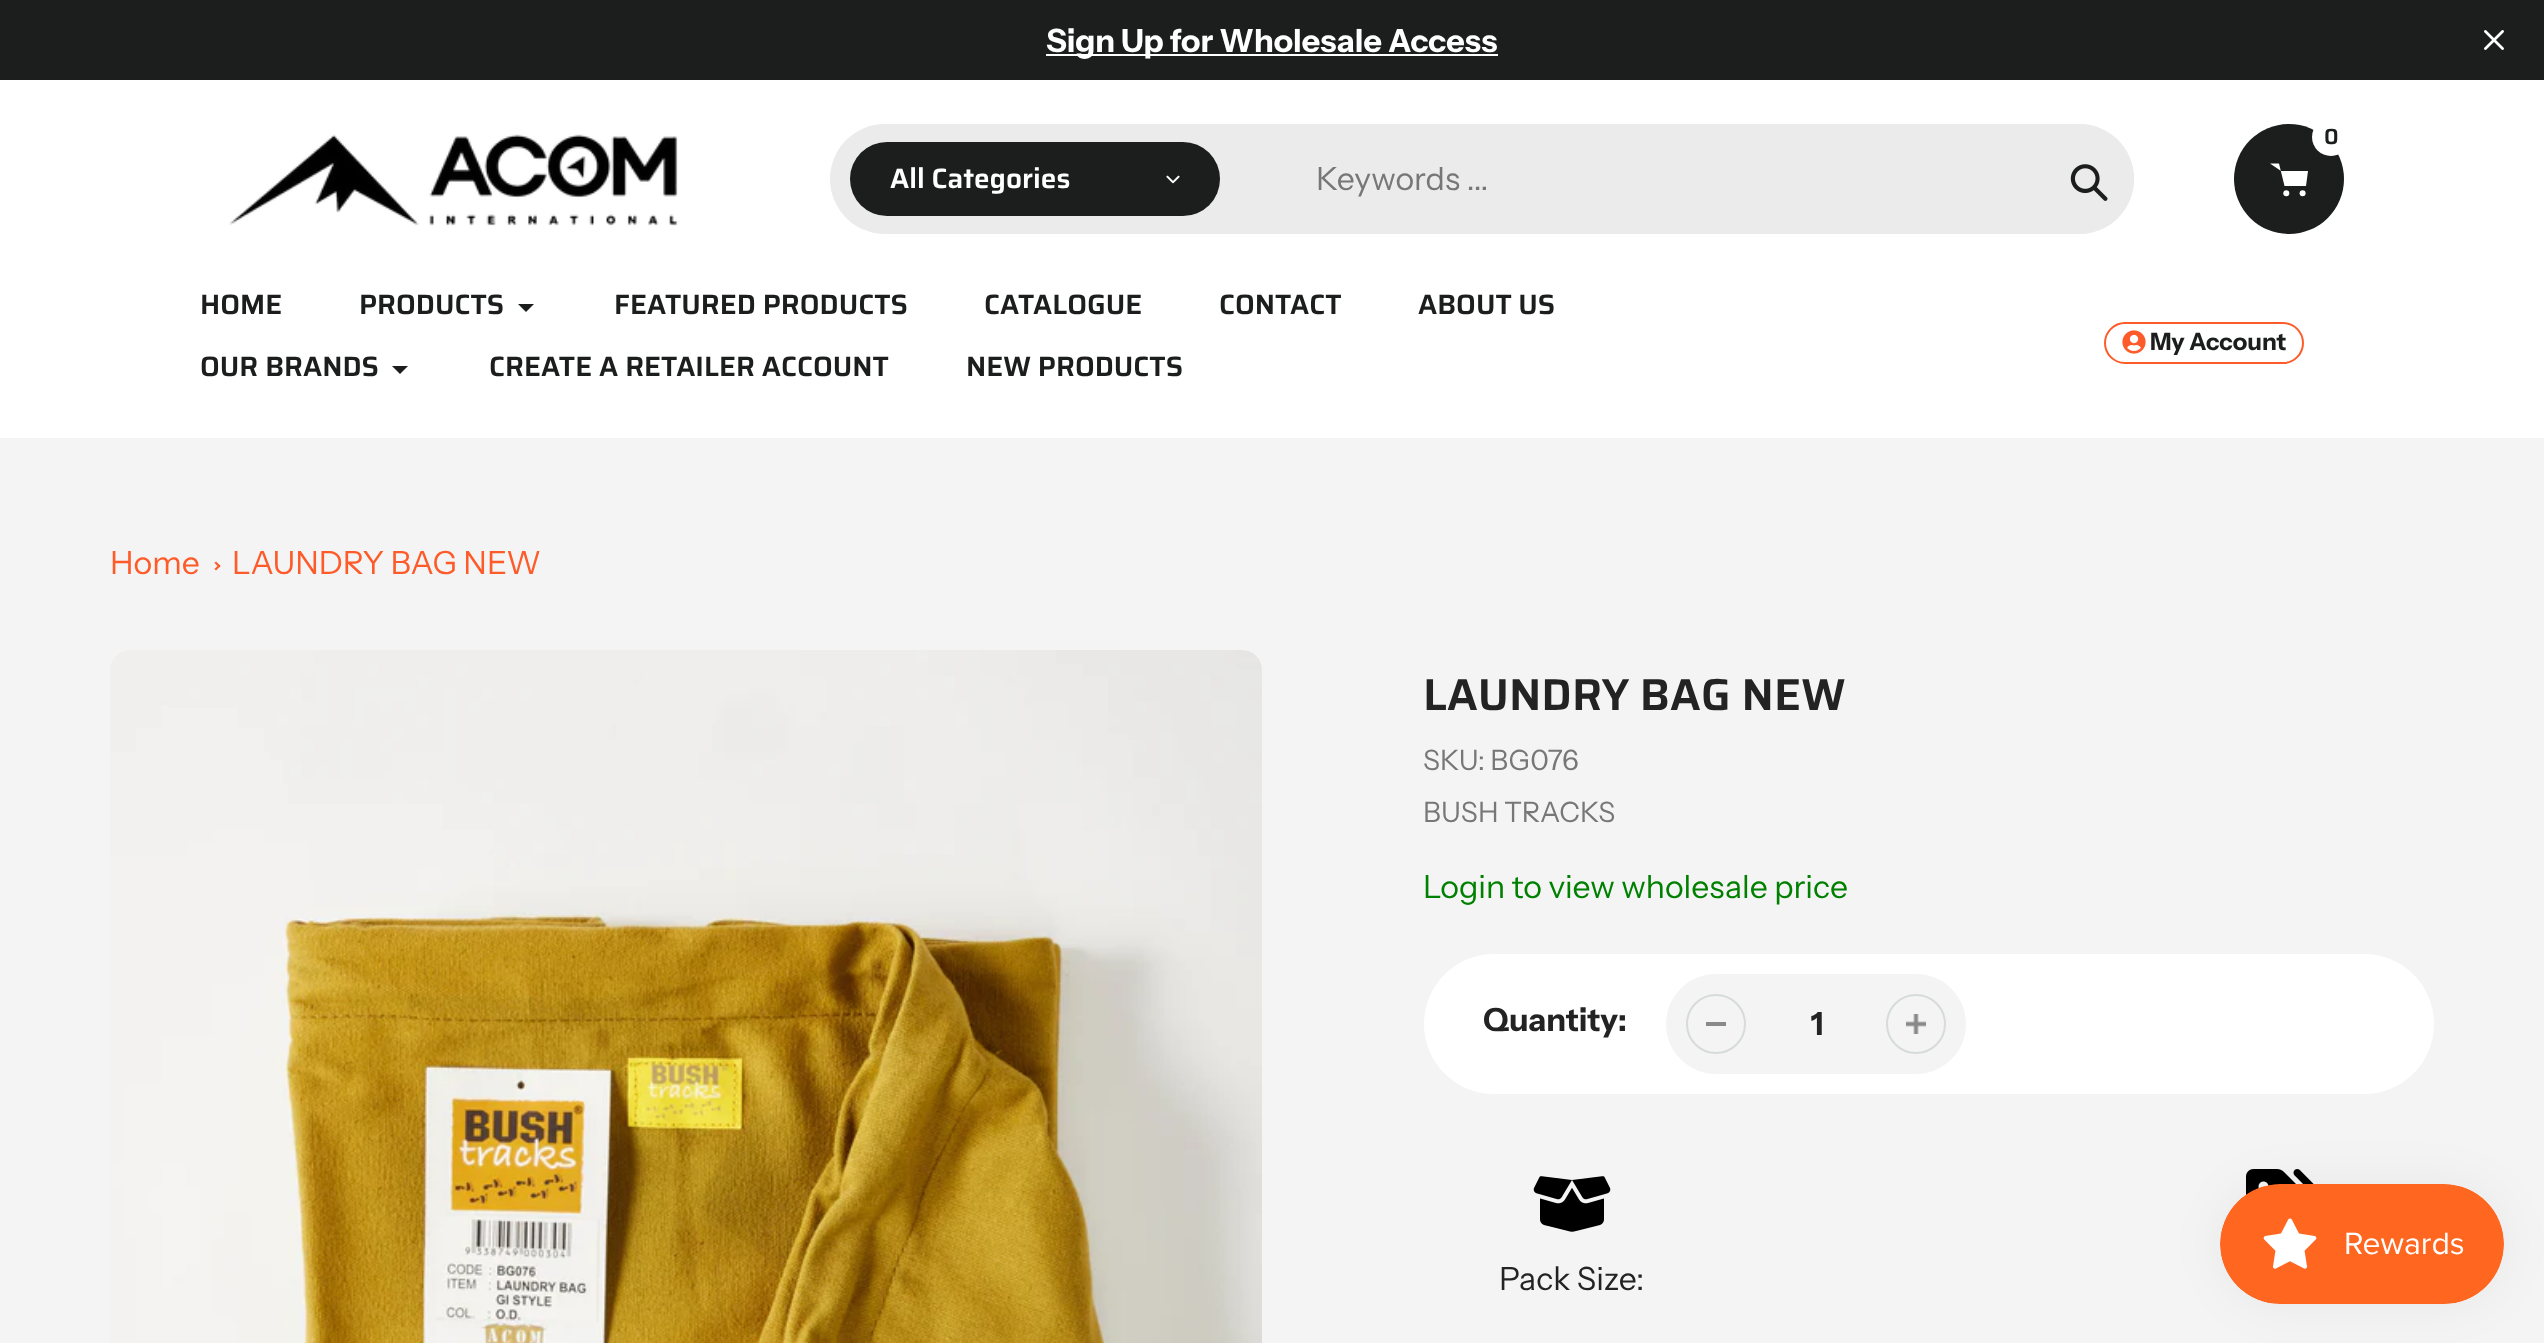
<?xml version="1.0" encoding="UTF-8"?>
<svg xmlns="http://www.w3.org/2000/svg" width="2544" height="1343">
    <defs>
        <filter id="blur1" x="-50%" y="-200%" width="200%" height="500%"><feGaussianBlur stdDeviation="25"/></filter>
    </defs>
    <rect width="100%" height="100%" fill="#F4F4F4"/>
    <rect x="0" y="0" width="2544" height="80" fill="#1B1E1C"/>
    <rect x="1046" y="54" width="452" height="2" fill="#FFFFFF"/>
    <text x="1046" y="52" font-family="Instrument Sans" font-size="32" font-weight="700" fill="#FFFFFF">Sign Up for Wholesale Access</text>
    <image x="2484" y="30" width="20" height="20" href="img_01.png"/>
    <rect x="0" y="80" width="2544" height="358" fill="#FFFFFF"/>
    <image x="229" y="134" width="449" height="92" href="img_02.png"/>
    <circle cx="2289" cy="179" r="55" fill="#1B1E1C"/>
    <circle cx="2331" cy="137" r="19" fill="#FFFFFF"/>
    <text x="2324" y="144" font-family="Saira" font-size="22" font-weight="600" fill="#1B1E1C">0</text>
    <circle cx="2286.3" cy="193.3" r="3" fill="#FFFFFF"/>
    <circle cx="2302.6" cy="193.3" r="3" fill="#FFFFFF"/>
    <path d="M 2281 171 H 2308 L 2306 186 H 2284.5 L 2279 163.5 H 2270" fill="#FFFFFF" fill-rule="evenodd"/>
    <rect x="830" y="124" width="1304" height="110" rx="55" fill="#EBEBEB"/>
    <rect x="850" y="142" width="370" height="74" rx="37" fill="#1B1E1C"/>
    <text x="890" y="188" font-family="Saira" font-size="28" font-weight="600" fill="#FFFFFF">All Categories</text>
    <image x="1166" y="175" width="14" height="9" href="img_03.png"/>
    <rect x="1260" y="124" width="874" height="110" rx="55" fill="#EBEBEB"/>
    <text x="1316" y="190" font-family="Instrument Sans" font-size="32" fill="#777777">Keywords ...</text>
    <image x="2070" y="164" width="38" height="37" href="img_04.png"/>
    <text x="200" y="314" font-family="Saira" font-size="28" font-weight="600" fill="#1B1E1C">HOME</text>
    <text x="359" y="314" font-family="Saira" font-size="28" font-weight="600" fill="#1B1E1C">PRODUCTS</text>
    <path d="M 534 304 L 526 312 L 518 304" fill="#1B1E1C"/>
    <text x="614" y="314" font-family="Saira" font-size="28" font-weight="600" fill="#1B1E1C">FEATURED PRODUCTS</text>
    <text x="984" y="314" font-family="Saira" font-size="28" font-weight="600" fill="#1B1E1C">CATALOGUE</text>
    <text x="1219" y="314" font-family="Saira" font-size="28" font-weight="600" fill="#1B1E1C">CONTACT</text>
    <text x="1418" y="314" font-family="Saira" font-size="28" font-weight="600" fill="#1B1E1C">ABOUT US</text>
    <text x="200" y="376" font-family="Saira" font-size="28" font-weight="600" fill="#1B1E1C">OUR BRANDS</text>
    <path d="M 408 366 L 400 374 L 392 366" fill="#1B1E1C"/>
    <text x="489" y="376" font-family="Saira" font-size="28" font-weight="600" fill="#1B1E1C">CREATE A RETAILER ACCOUNT</text>
    <text x="966" y="376" font-family="Saira" font-size="28" font-weight="600" fill="#1B1E1C">NEW PRODUCTS</text>
    <rect x="2105" y="323" width="198" height="40" rx="20" fill="none" stroke="#FD5B2A" stroke-width="2"/>
    <image x="2122" y="330" width="24" height="24" href="img_05.png"/>
    <text x="2150" y="350" font-family="Instrument Sans" font-size="24" font-weight="700" fill="#1B1E1C">My Account</text>
    <text x="110" y="574" font-family="Instrument Sans" font-size="32" fill="#FD5B2A">Home</text>
    <path d="M 216 561.5 L 220.5 566 L 219 567.5 L 214.5 563 Z" fill="#FD5B2A"/>
    <path d="M 219 564.5 L 220.5 566 L 216 570.5 L 214.5 569 Z" fill="#FD5B2A"/>
    <text x="232" y="574" font-family="Instrument Sans" font-size="32" fill="#FD5B2A">LAUNDRY BAG NEW</text>
    <image x="110" y="650" width="1152" height="693" href="img_06.png"/>
    <text x="1423" y="710" font-family="Saira" font-size="44.75" font-weight="600" fill="#232323">LAUNDRY BAG NEW</text>
    <text font-family="Instrument Sans" font-size="28" fill="#777777">
        <tspan x="1423" y="770">SKU: BG076</tspan>
        <tspan x="1423" y="822">BUSH TRACKS</tspan>
    </text>
    <text x="1423" y="898" font-family="Instrument Sans" font-size="32" fill="#008000">Login to view wholesale price</text>
    <rect x="1424" y="954" width="1010" height="140" rx="70" fill="#FFFFFF"/>
    <text x="1483" y="1031" font-family="Instrument Sans" font-size="32" font-weight="700" fill="#232323">Quantity:</text>
    <rect x="1666" y="974" width="300" height="100" rx="50" fill="#F4F4F4"/>
    <rect x="1706" y="1022" width="20" height="4" fill="#898989"/>
    <circle cx="1716" cy="1024" r="29" fill="none" stroke="#D7DBDB" stroke-width="2"/>
    <text x="1811" y="1035" font-family="Instrument Sans" font-size="32" font-weight="700" fill="#232323">1</text>
    <image x="1906" y="1014" width="20" height="20" href="img_07.png"/>
    <circle cx="1916" cy="1024" r="29" fill="none" stroke="#D7DBDB" stroke-width="2"/>
    <image x="2246" y="1169" width="68" height="26" href="img_08.png"/>
    <image x="1533" y="1176" width="78" height="56" href="img_09.png"/>
    <text x="1499" y="1290" font-family="Instrument Sans" font-size="32" fill="#232323">Pack Size:</text>
    <rect x="2220" y="1184" width="284" height="120" rx="60" fill="#000000" fill-opacity="0.05" filter="url(#blur1)"/>
    <image x="2220" y="1184" width="284" height="120" href="img_10.png"/>
</svg>
